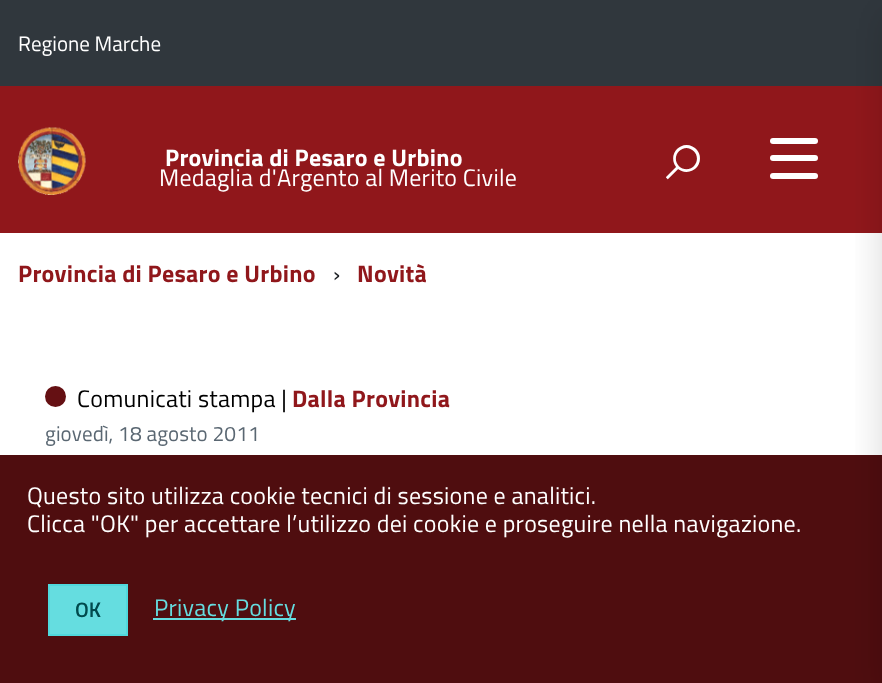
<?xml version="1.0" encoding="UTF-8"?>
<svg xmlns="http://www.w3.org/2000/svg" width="882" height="683">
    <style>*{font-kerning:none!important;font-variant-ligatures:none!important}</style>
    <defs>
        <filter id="blur1" x="-50%" y="-200%" width="200%" height="500%"><feGaussianBlur stdDeviation="18"/></filter>
    </defs>
    <rect width="100%" height="100%" fill="#FFFFFF"/>
    <rect x="0" y="0" width="882" height="86" fill="#30373D"/>
    <text x="18" y="51" font-family="Titillium Web" font-size="21" fill="#FFFFFF">Regione Marche</text>
    <rect x="0" y="86" width="882" height="147" fill="#90171B"/>
    <image x="18" y="127" width="68" height="68" href="img_01.png"/>
    <text x="165" y="166" font-family="Titillium Web" font-size="24" font-weight="700" letter-spacing="0.25" fill="#FFFFFF">Provincia di Pesaro e Urbino</text>
    <text x="159" y="186" font-family="Titillium Web" font-size="24" letter-spacing="0.25" fill="#FFFFFF">Medaglia d'Argento al Merito Civile</text>
    <text x="666" y="177" font-family="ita" font-size="33" font-weight="700" fill="#FFFFFF">🔍</text>
    <rect x="770" y="155" width="48" height="6" rx="3" fill="#FFFFFF"/>
    <rect x="770" y="138" width="48" height="6" rx="3" fill="#FFFFFF"/>
    <rect x="770" y="173" width="48" height="6" rx="3" fill="#FFFFFF"/>
    <rect x="0" y="455" width="882" height="228" fill="#4F0D0F"/>
    <rect x="882" y="12" width="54" height="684" fill="#323232" fill-opacity="0.15" filter="url(#blur1)"/>
    <text x="18" y="282" font-family="Titillium Web" font-size="24" font-weight="700" letter-spacing="0.25" fill="#90171B">Provincia di Pesaro e Urbino</text>
    <text x="333" y="282" font-family="Titillium Web" font-size="24" fill="#1C2024">›</text>
    <text x="357" y="282" font-family="Titillium Web" font-size="24" font-weight="700" letter-spacing="0.25" fill="#90171B">Novità</text>
    <circle cx="55.5" cy="396.5" r="10.5" fill="#651013"/>
    <text x="77" y="407" font-family="Titillium Web" font-size="24" letter-spacing="0.25" fill="#000000">Comunicati stampa |</text>
    <text x="292" y="407" font-family="Titillium Web" font-size="24" font-weight="700" letter-spacing="0.25" fill="#90171B">Dalla Provincia</text>
    <text x="45" y="441" font-family="Titillium Web" font-size="21" letter-spacing="0.1" fill="#5A6772">giovedì, 18 agosto 2011</text>
    <text font-family="Titillium Web" font-size="24" letter-spacing="0.25" fill="#FFFFFF">
        <tspan x="27" y="504">Questo sito utilizza cookie tecnici di sessione e analitici.</tspan>
        <tspan x="27" y="532">Clicca "OK" per accettare l’utilizzo dei cookie e proseguire nella navigazione.</tspan>
    </text>
    <rect x="49" y="585" width="78" height="50" fill="#65DDE0" stroke="#50D8DC" stroke-width="2"/>
    <text x="75" y="617" font-family="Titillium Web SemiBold" font-size="21" font-weight="600" fill="#004A4D">OK</text>
    <rect x="153" y="618" width="143" height="2" fill="#65DCDF"/>
    <text x="154" y="616" font-family="Titillium Web" font-size="24" letter-spacing="0.25" fill="#65DCDF">Privacy Policy</text>
</svg>
